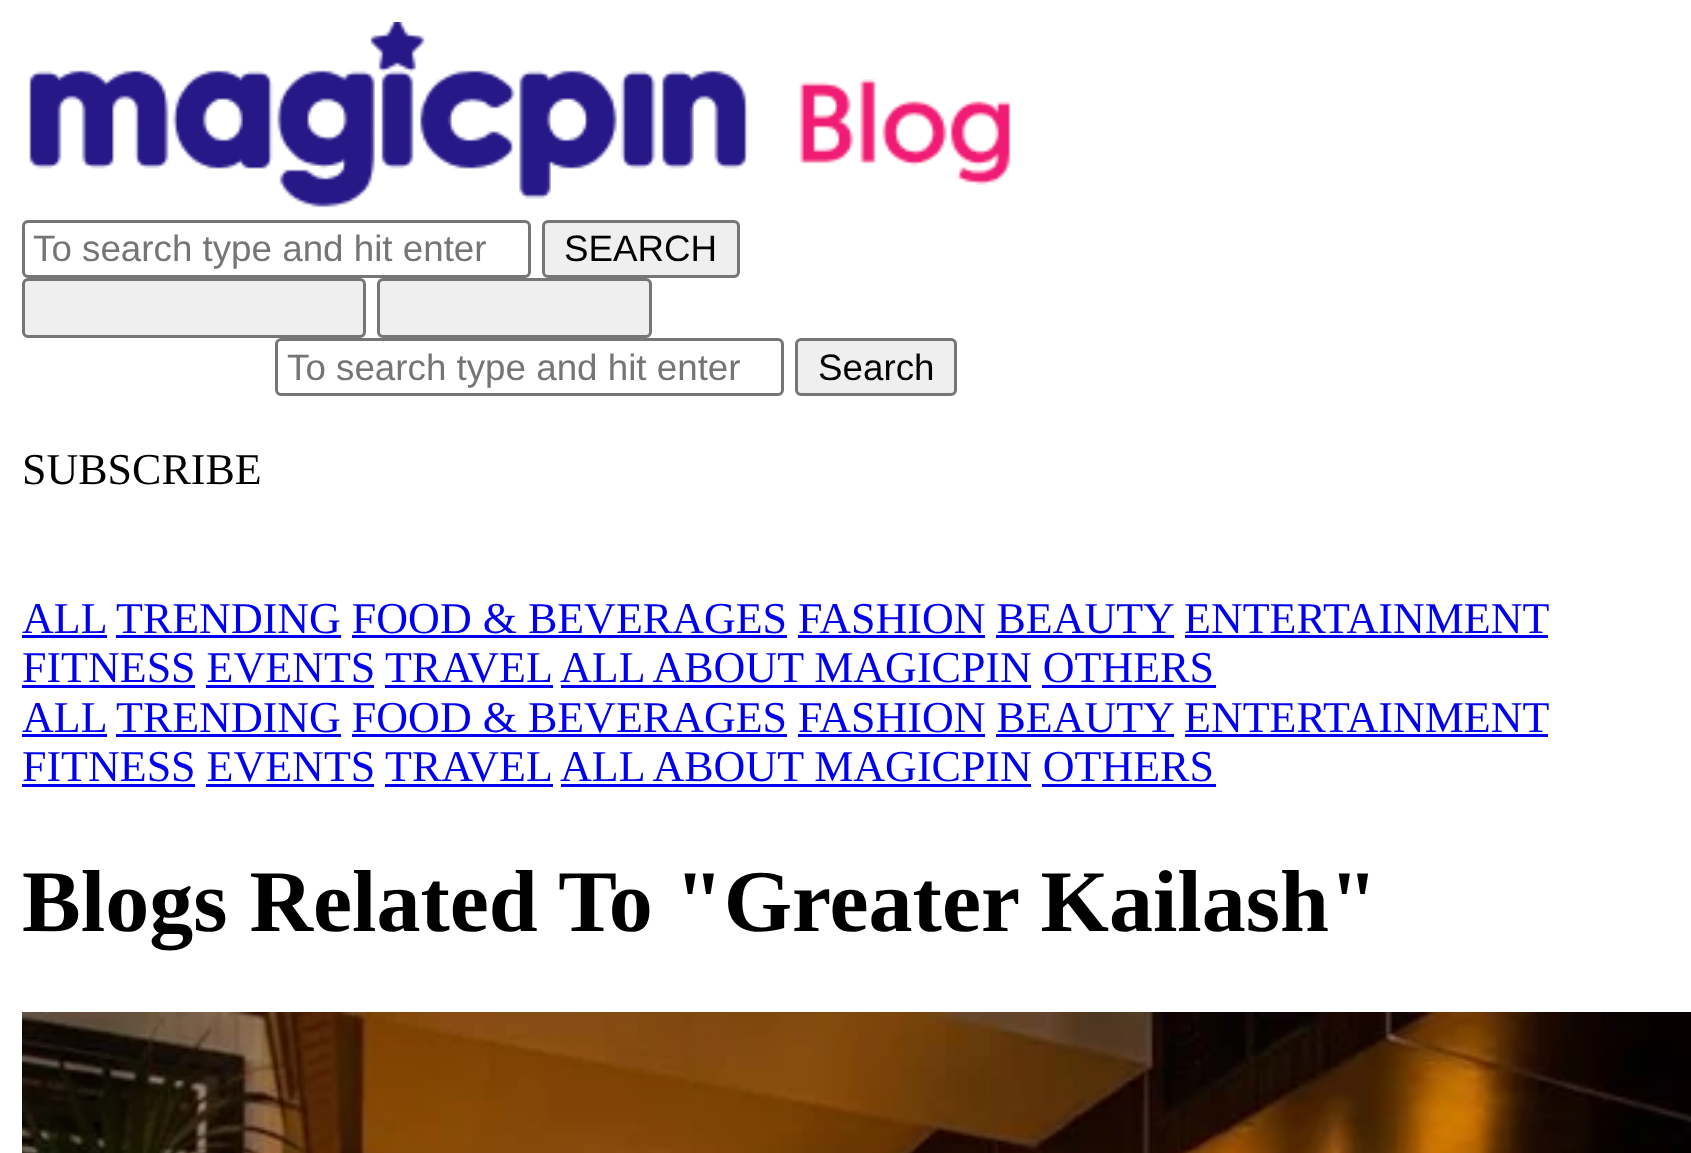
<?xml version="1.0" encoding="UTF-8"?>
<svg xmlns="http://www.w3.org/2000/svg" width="1691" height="1153">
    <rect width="100%" height="100%" fill="#FFFFFF"/>
    <image x="29" y="22" width="720" height="186" href="img_01.png"/>
    <image x="799" y="79" width="212" height="106" href="img_02.png"/>
    <rect x="23.5" y="221.5" width="506" height="55" rx="4.5" fill="none" stroke="#767676" stroke-width="3"/>
    <text x="33" y="261" font-family="Liberation Sans" font-size="36.75" fill="#757575">To search type and hit enter</text>
    <rect x="543.5" y="221.5" width="195" height="55" rx="4.5" fill="#EFEFEF" stroke="#767676" stroke-width="3"/>
    <text x="564" y="261" font-family="Liberation Sans" font-size="36.75" fill="#000000">SEARCH</text>
    <rect x="23.5" y="279.5" width="341" height="57" rx="4.5" fill="#EFEFEF" stroke="#767676" stroke-width="3"/>
    <rect x="378.5" y="279.5" width="272" height="57" rx="4.5" fill="#EFEFEF" stroke="#767676" stroke-width="3"/>
    <rect x="276.5" y="339.5" width="506" height="55" rx="4.5" fill="none" stroke="#767676" stroke-width="3"/>
    <text x="287" y="380" font-family="Liberation Sans" font-size="36.75" fill="#757575">To search type and hit enter</text>
    <rect x="796.5" y="339.5" width="159" height="55" rx="4.5" fill="#EFEFEF" stroke="#767676" stroke-width="3"/>
    <text x="818" y="380" font-family="Liberation Sans" font-size="36.75" fill="#000000">Search</text>
    <text x="22" y="484" font-family="Liberation Serif" font-size="44" fill="#000000">SUBSCRIBE</text>
    <text x="22" y="633" font-family="Liberation Serif" font-size="44" fill="#0000EE">ALL</text>
    <rect x="22" y="635" width="85" height="3" fill="#0000EE"/>
    <text x="116" y="633" font-family="Liberation Serif" font-size="44" fill="#0000EE">TRENDING FOOD &amp; BEVERAGES FASHION BEAUTY</text>
    <rect x="116" y="635" width="225" height="3" fill="#0000EE"/>
    <text x="1184" y="633" font-family="Liberation Serif" font-size="44" fill="#0000EE">ENTERTAINMENT</text>
    <rect x="1185" y="635" width="363" height="3" fill="#0000EE"/>
    <rect x="352" y="635" width="435" height="3" fill="#0000EE"/>
    <rect x="798" y="635" width="187" height="3" fill="#0000EE"/>
    <rect x="996" y="635" width="178" height="3" fill="#0000EE"/>
    <text x="22" y="682" font-family="Liberation Serif" font-size="44" fill="#0000EE">FITNESS EVENTS</text>
    <rect x="22" y="685" width="173" height="3" fill="#0000EE"/>
    <text x="385" y="682" font-family="Liberation Serif" font-size="44" fill="#0000EE">TRAVEL</text>
    <rect x="385" y="685" width="168" height="3" fill="#0000EE"/>
    <text x="560" y="682" font-family="Liberation Serif" font-size="44" fill="#0000EE">ALL ABOUT MAGICPIN OTHERS</text>
    <rect x="561" y="685" width="470" height="3" fill="#0000EE"/>
    <rect x="206" y="685" width="168" height="3" fill="#0000EE"/>
    <rect x="1042" y="685" width="174" height="3" fill="#0000EE"/>
    <text x="22" y="732" font-family="Liberation Serif" font-size="44" fill="#0000EE">ALL</text>
    <rect x="22" y="734" width="85" height="3" fill="#0000EE"/>
    <text x="116" y="732" font-family="Liberation Serif" font-size="44" fill="#0000EE">TRENDING FOOD &amp; BEVERAGES FASHION BEAUTY</text>
    <rect x="116" y="734" width="225" height="3" fill="#0000EE"/>
    <text x="1184" y="732" font-family="Liberation Serif" font-size="44" fill="#0000EE">ENTERTAINMENT</text>
    <rect x="1185" y="734" width="363" height="3" fill="#0000EE"/>
    <rect x="352" y="734" width="435" height="3" fill="#0000EE"/>
    <rect x="798" y="734" width="187" height="3" fill="#0000EE"/>
    <rect x="996" y="734" width="178" height="3" fill="#0000EE"/>
    <text x="22" y="781" font-family="Liberation Serif" font-size="44" fill="#0000EE">FITNESS EVENTS</text>
    <rect x="22" y="784" width="173" height="3" fill="#0000EE"/>
    <text x="385" y="781" font-family="Liberation Serif" font-size="44" fill="#0000EE">TRAVEL</text>
    <rect x="385" y="784" width="168" height="3" fill="#0000EE"/>
    <text x="560" y="781" font-family="Liberation Serif" font-size="44" fill="#0000EE">ALL ABOUT MAGICPIN OTHERS</text>
    <rect x="561" y="784" width="470" height="3" fill="#0000EE"/>
    <rect x="206" y="784" width="168" height="3" fill="#0000EE"/>
    <rect x="1042" y="784" width="174" height="3" fill="#0000EE"/>
    <text x="22" y="931" font-family="Liberation Serif" font-size="88" font-weight="700" fill="#000000">Blogs Related To "Greater Kailash"</text>
    <image x="22" y="1012" width="1669" height="141" href="img_03.png"/>
</svg>
